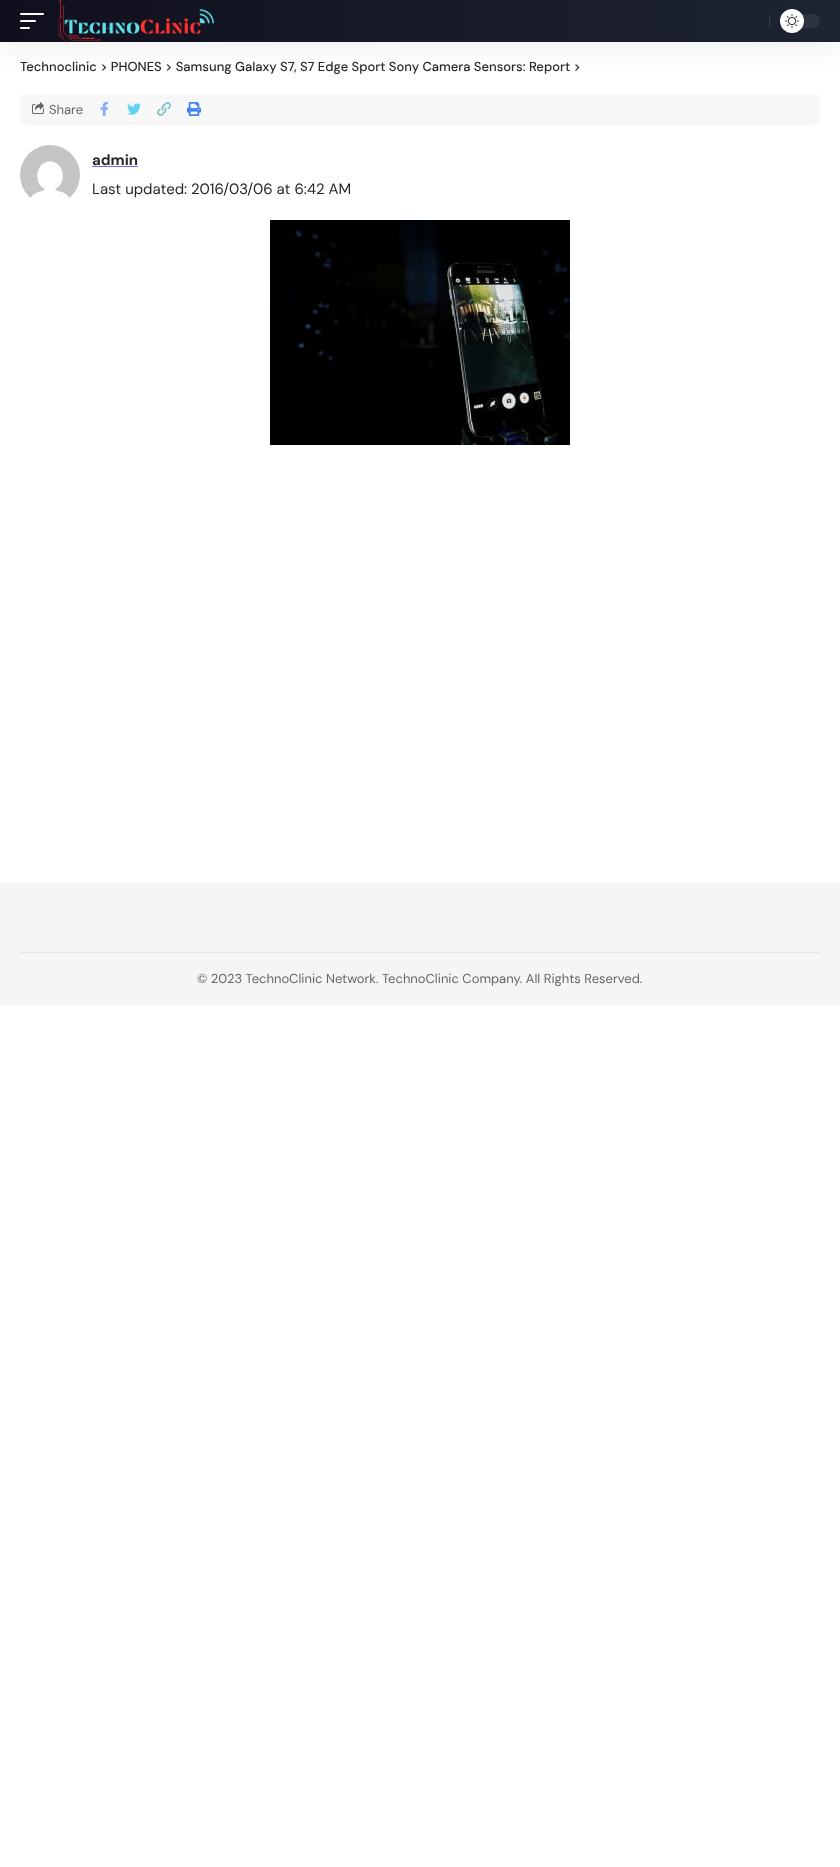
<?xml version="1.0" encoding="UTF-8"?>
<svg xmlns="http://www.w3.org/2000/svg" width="840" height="1867">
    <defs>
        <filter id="blur1" x="-50%" y="-200%" width="200%" height="500%"><feGaussianBlur stdDeviation="15"/></filter>
        <linearGradient id="g1" gradientUnits="userSpaceOnUse" x1="0" y1="21" x2="840" y2="21"><stop offset="0" stop-color="#100F1E"/><stop offset="1" stop-color="#1E2432"/></linearGradient>
    </defs>
    <rect width="100%" height="100%" fill="#FFFFFF"/>
    <rect x="0" y="4" width="840" height="42" fill="#000000" fill-opacity="0.07" filter="url(#blur1)"/>
    <rect x="0" y="0" width="840" height="42" fill="url(#g1)"/>
    <rect x="20" y="13" width="24" height="2" rx="1" fill="#FFFFFF"/>
    <rect x="20" y="20" width="16" height="2" rx="1" fill="#FFFFFF"/>
    <rect x="20" y="27" width="10" height="2" rx="1" fill="#FFFFFF"/>
    <image x="57" y="0" width="157" height="42" href="img_01.png"/>
    <rect x="769" y="14" width="1" height="14" fill="#343845"/>
    <rect x="780" y="14" width="40" height="14" rx="7" fill="#2D323E"/>
    <circle cx="792" cy="21" r="12" fill="#FFFFFF"/>
    <image x="785" y="14" width="14" height="14" href="img_02.png"/>
    <text x="20" y="71" font-family="DM Sans" font-size="13" font-weight="500" fill="#282828">Technoclinic &gt; PHONES &gt; Samsung Galaxy S7, S7 Edge Sport Sony Camera Sensors: Report &gt;</text>
    <rect x="20" y="94" width="800" height="31" rx="5" fill="#F7F7F7"/>
    <image x="32" y="102" width="12" height="12" href="img_03.png"/>
    <text x="49" y="114" font-family="DM Sans" font-size="13" fill="#666666">Share</text>
    <image x="100" y="102" width="9" height="14" href="img_04.png"/>
    <image x="127" y="103" width="14" height="12" href="img_05.png"/>
    <image x="157" y="102" width="14" height="14" href="img_06.png"/>
    <image x="187" y="102" width="14" height="14" href="img_07.png"/>
    <image x="20" y="145" width="60" height="53" href="img_08.png"/>
    <text x="92" y="165" font-family="DM Sans" font-size="15" font-weight="700" fill="#282828">admin</text>
    <rect x="92" y="166" width="46" height="1" fill="#706BFF"/>
    <text x="92" y="194" font-family="DM Sans" font-size="15" fill="#282828">Last updated: 2016/03/06 at 6:42 AM</text>
    <image x="270" y="220" width="300" height="225" href="img_09.png"/>
    <rect x="0" y="882" width="840" height="123" fill="#F5F5F5"/>
    <rect x="20" y="952" width="800" height="1" fill="#E5E5E5"/>
    <text x="197" y="983" font-family="DM Sans" font-size="13" fill="#666666">© 2023 TechnoClinic Network. TechnoClinic Company. All Rights Reserved.</text>
</svg>
